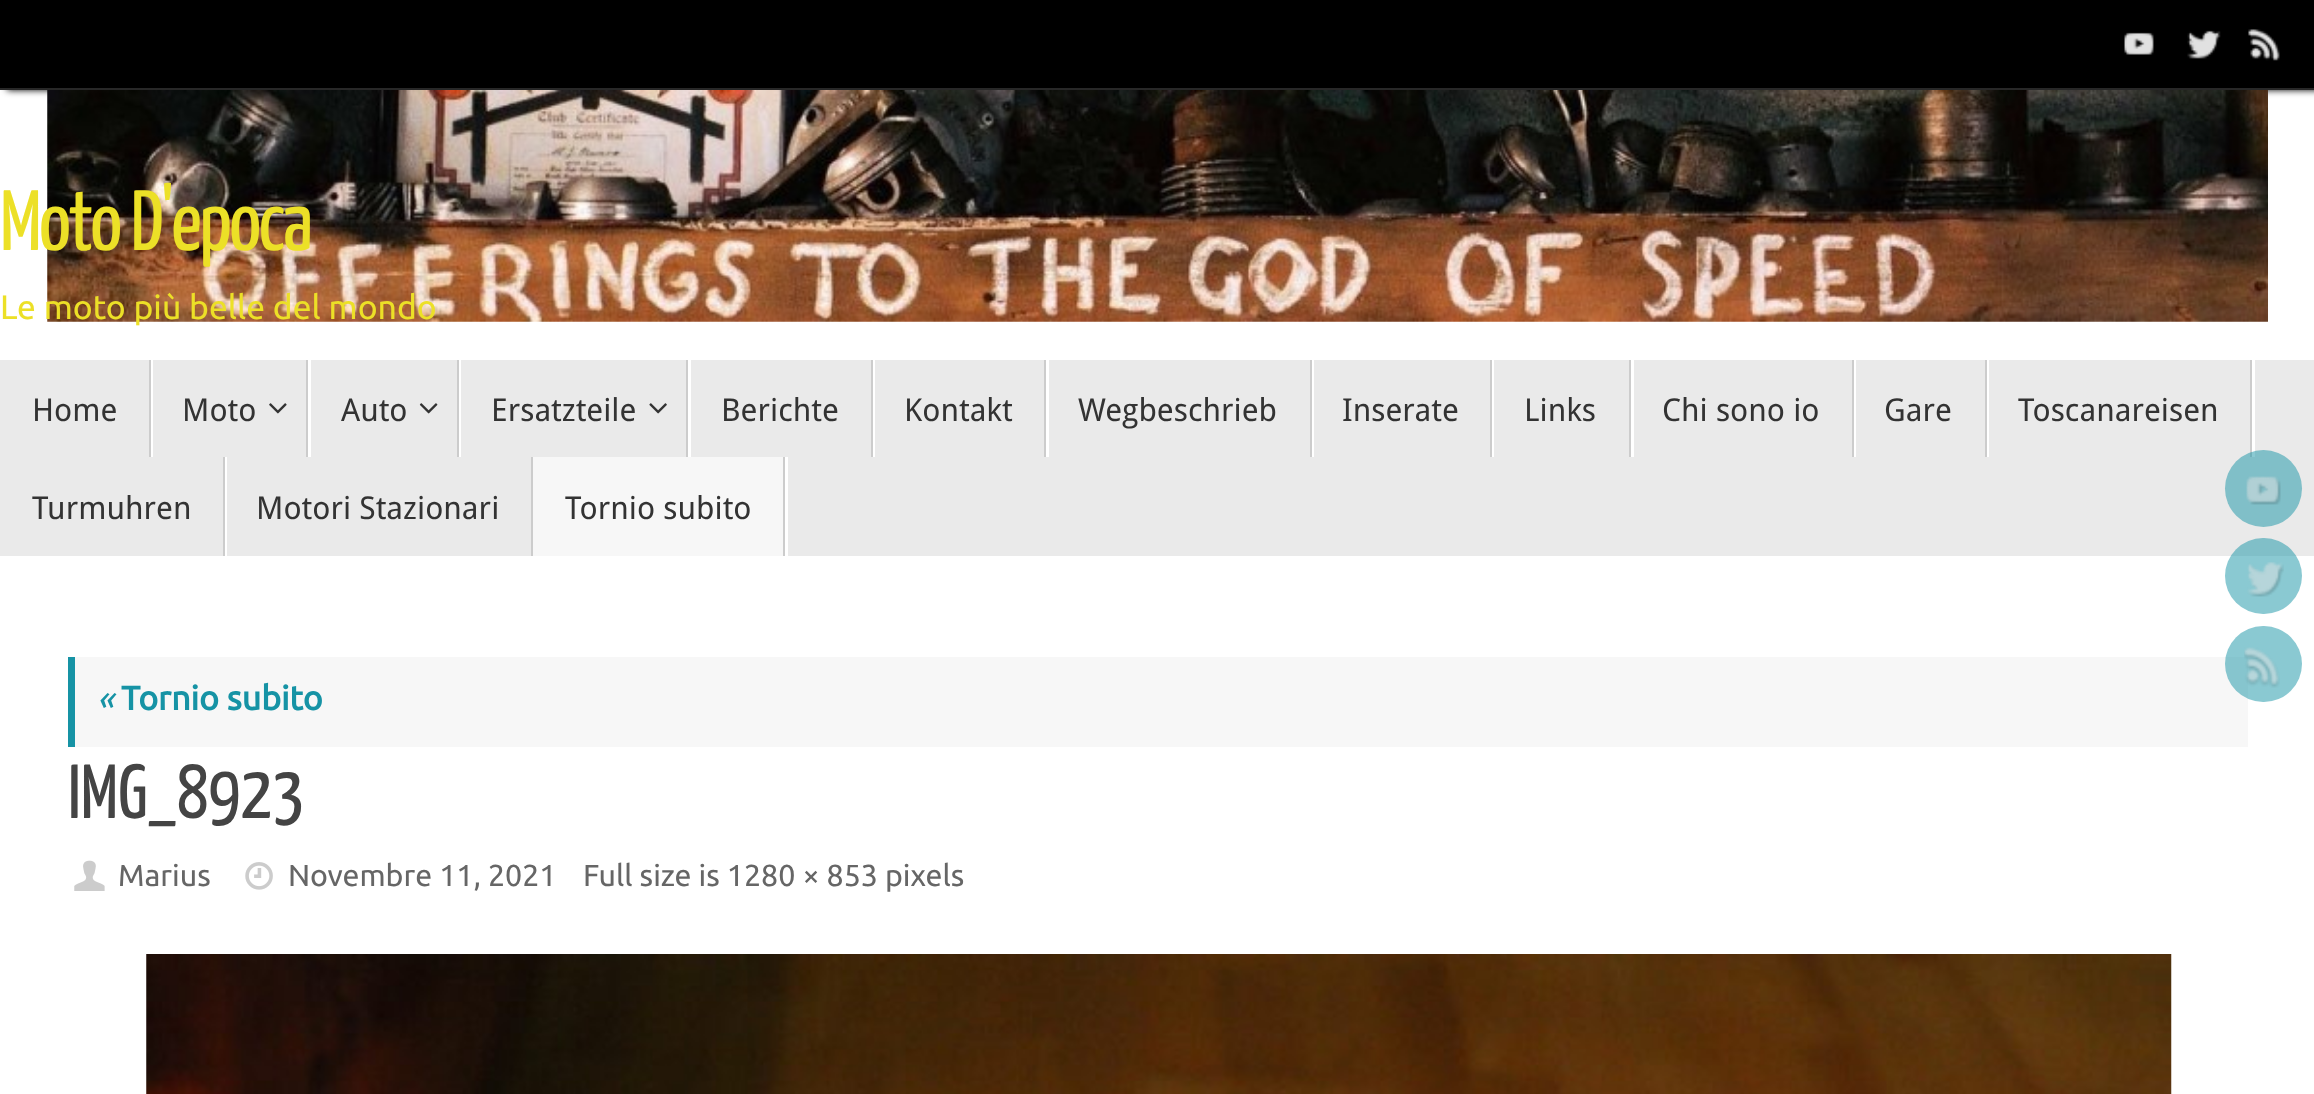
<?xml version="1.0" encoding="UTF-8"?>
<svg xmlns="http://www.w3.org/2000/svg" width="2314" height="1094">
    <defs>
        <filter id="blur1" x="-50%" y="-200%" width="200%" height="500%"><feGaussianBlur stdDeviation="3.5"/></filter>
    </defs>
    <rect width="100%" height="100%" fill="#FFFFFF"/>
    <rect x="7" y="0" width="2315" height="90" fill="#000000" filter="url(#blur1)"/>
    <rect x="0" y="0" width="2314" height="88" fill="#000000"/>
    <rect x="0" y="88" width="2314" height="2" fill="#282828"/>
    <image x="2124" y="32" width="30" height="23" href="img_01.png"/>
    <image x="2187" y="30" width="34" height="29" href="img_02.png"/>
    <image x="2248" y="29" width="32" height="32" href="img_03.png"/>
    <image x="47" y="90" width="2221" height="232" href="img_04.png"/>
    <text x="0" y="250" font-family="Yanone Kaffeesatz" font-size="85.5" letter-spacing="-2.5" fill="#ECE027">Moto D'epoca</text>
    <text x="0" y="319" font-family="Ubuntu" font-size="33.75" fill="#ECE027">Le moto più belle del mondo</text>
    <rect x="0" y="360" width="2314" height="196" fill="#EAEAEA"/>
    <path d="M 2 457 H 153 V 360 H 151 V 457 Z" fill="#FFFFFF"/>
    <rect x="149" y="360" width="2" height="97" fill="#CCCCCC"/>
    <text x="32" y="421" font-family="Droid Sans" font-size="31.5" fill="#333333">Home</text>
    <path d="M 153 457 H 311 V 360 H 308 V 457 Z" fill="#FFFFFF"/>
    <rect x="306" y="360" width="2" height="97" fill="#CCCCCC"/>
    <text x="182" y="421" font-family="Droid Sans" font-size="31.5" fill="#333333">Moto</text>
    <image x="269" y="403" width="18" height="11" href="img_05.png"/>
    <path d="M 311 457 H 461 V 360 H 459 V 457 Z" fill="#FFFFFF"/>
    <rect x="457" y="360" width="2" height="97" fill="#CCCCCC"/>
    <text x="341" y="421" font-family="Droid Sans" font-size="31.5" fill="#333333">Auto</text>
    <image x="419" y="403" width="19" height="11" href="img_06.png"/>
    <path d="M 461 457 H 691 V 360 H 688 V 457 Z" fill="#FFFFFF"/>
    <rect x="686" y="360" width="2" height="97" fill="#CCCCCC"/>
    <text x="491" y="421" font-family="Droid Sans" font-size="31.5" fill="#333333">Ersatzteile</text>
    <image x="649" y="403" width="18" height="11" href="img_07.png"/>
    <path d="M 691 457 H 875 V 360 H 873 V 457 Z" fill="#FFFFFF"/>
    <rect x="871" y="360" width="2" height="97" fill="#CCCCCC"/>
    <text x="721" y="421" font-family="Droid Sans" font-size="31.5" fill="#333333">Berichte</text>
    <path d="M 875 457 H 1049 V 360 H 1046 V 457 Z" fill="#FFFFFF"/>
    <rect x="1044" y="360" width="2" height="97" fill="#CCCCCC"/>
    <text x="904" y="421" font-family="Droid Sans" font-size="31.5" fill="#333333">Kontakt</text>
    <path d="M 1049 457 H 1314 V 360 H 1312 V 457 Z" fill="#FFFFFF"/>
    <rect x="1310" y="360" width="2" height="97" fill="#CCCCCC"/>
    <text x="1078" y="421" font-family="Droid Sans" font-size="31.5" fill="#333333">Wegbeschrieb</text>
    <path d="M 1314 457 H 1494 V 360 H 1492 V 457 Z" fill="#FFFFFF"/>
    <rect x="1490" y="360" width="2" height="97" fill="#CCCCCC"/>
    <text x="1342" y="421" font-family="Droid Sans" font-size="31.5" fill="#333333">Inserate</text>
    <path d="M 1494 457 H 1634 V 360 H 1631 V 457 Z" fill="#FFFFFF"/>
    <rect x="1629" y="360" width="2" height="97" fill="#CCCCCC"/>
    <text x="1524" y="421" font-family="Droid Sans" font-size="31.5" fill="#333333">Links</text>
    <path d="M 1634 457 H 1856 V 360 H 1854 V 457 Z" fill="#FFFFFF"/>
    <rect x="1852" y="360" width="2" height="97" fill="#CCCCCC"/>
    <text x="1662" y="421" font-family="Droid Sans" font-size="31.5" fill="#333333">Chi sono io</text>
    <path d="M 1856 457 H 1989 V 360 H 1987 V 457 Z" fill="#FFFFFF"/>
    <rect x="1985" y="360" width="2" height="97" fill="#CCCCCC"/>
    <text x="1884" y="421" font-family="Droid Sans" font-size="31.5" fill="#333333">Gare</text>
    <path d="M 1989 457 H 2255 V 360 H 2252 V 457 Z" fill="#FFFFFF"/>
    <rect x="2250" y="360" width="2" height="97" fill="#CCCCCC"/>
    <text x="2018" y="421" font-family="Droid Sans" font-size="31.5" fill="#333333">Toscanareisen</text>
    <path d="M 2 556 H 227 V 457 H 225 V 556 Z" fill="#FFFFFF"/>
    <rect x="223" y="457" width="2" height="99" fill="#CCCCCC"/>
    <text x="32" y="519" font-family="Droid Sans" font-size="31.5" fill="#333333">Turmuhren</text>
    <rect x="531" y="457" width="2" height="99" fill="#CCCCCC"/>
    <text x="256" y="519" font-family="Droid Sans" font-size="31.5" fill="#333333">Motori Stazionari</text>
    <rect x="533" y="457" width="250" height="99" fill="#F7F7F7"/>
    <path d="M 536 556 H 788 V 457 H 785 V 556 Z" fill="#FFFFFF"/>
    <rect x="783" y="457" width="2" height="99" fill="#CCCCCC"/>
    <text x="565" y="519" font-family="Droid Sans" font-size="31.5" fill="#333333">Tornio subito</text>
    <circle cx="2263.5" cy="488.5" r="38.5" fill="#1693A5" fill-opacity="0.5"/>
    <image x="2246" y="476" width="35" height="29" href="img_08.png"/>
    <rect x="2225" y="538" width="77" height="76" rx="38" fill="#1693A5" fill-opacity="0.5"/>
    <image x="2247" y="562" width="37" height="35" href="img_09.png"/>
    <rect x="75" y="657" width="2173" height="90" fill="#F7F7F7"/>
    <rect x="2225" y="626" width="77" height="76" rx="38" fill="#1693A5" fill-opacity="0.5"/>
    <image x="2244" y="647" width="36" height="41" href="img_10.png"/>
    <rect x="68" y="657" width="7" height="90" fill="#1693A5"/>
    <text x="97" y="710" font-family="Ubuntu" font-size="33.75" font-style="italic" fill="#1693A5">«</text>
    <text x="121" y="710" font-family="Ubuntu" font-size="33.75" font-weight="700" fill="#1693A5">Tornio subito</text>
    <text x="68" y="818" font-family="Yanone Kaffeesatz" font-size="76.5" fill="#444444">IMG_8923</text>
    <image x="74" y="860" width="31" height="31" href="img_11.png"/>
    <text x="118" y="886" font-family="Ubuntu" font-size="30.4" fill="#666666">Marius</text>
    <image x="245" y="862" width="28" height="28" href="img_12.png"/>
    <text x="288" y="886" font-family="Ubuntu" font-size="30.4" fill="#666666">Novembre 11, 2021</text>
    <text x="583" y="886" font-family="Ubuntu" font-size="30.4" fill="#666666">Full size is 1280 × 853 pixels</text>
    <image x="146" y="954" width="2026" height="140" href="img_13.png"/>
</svg>
